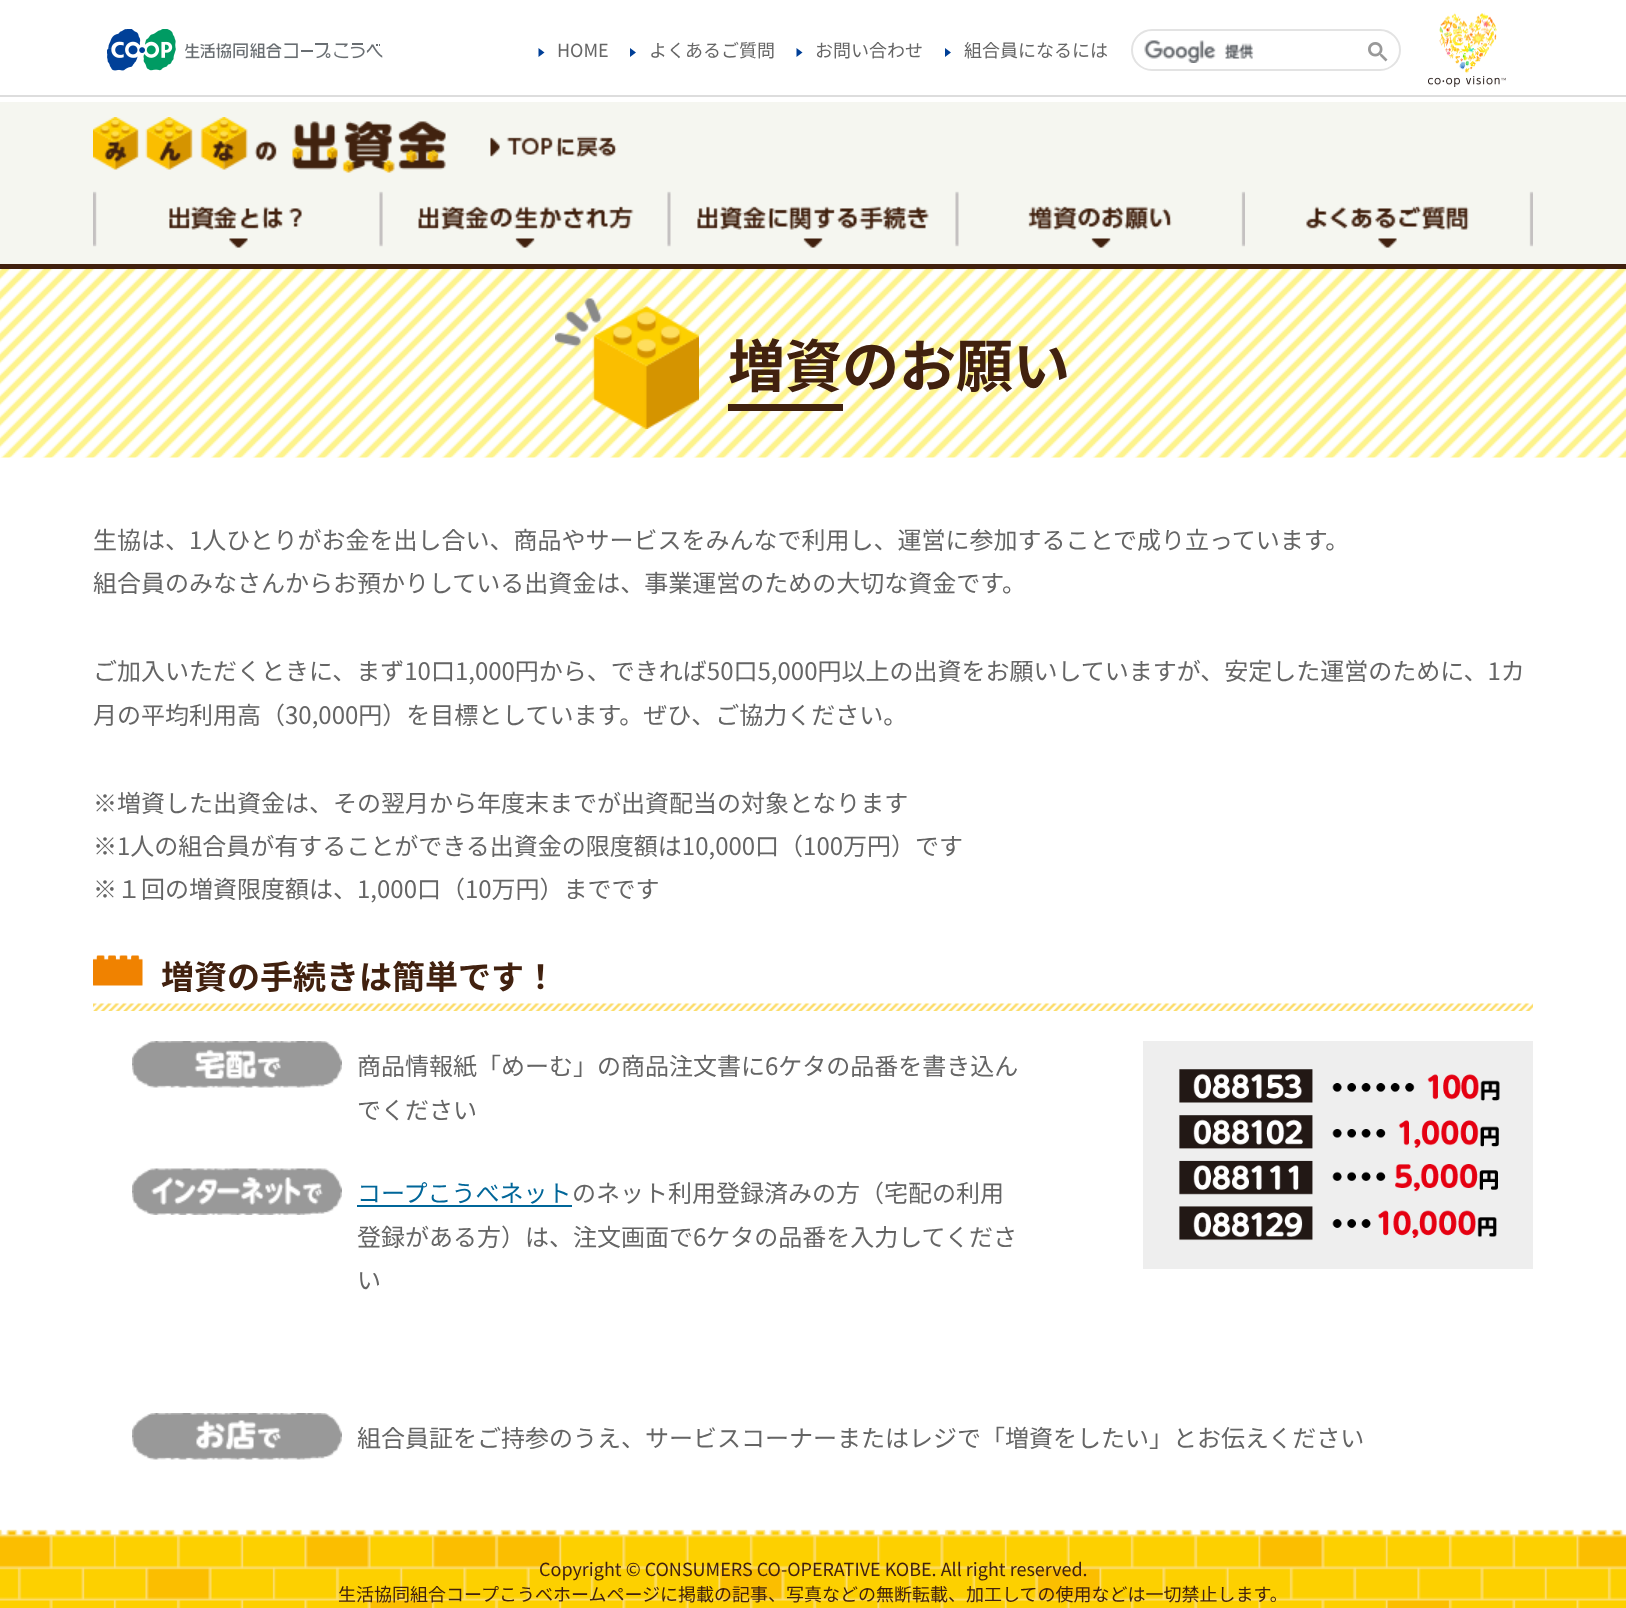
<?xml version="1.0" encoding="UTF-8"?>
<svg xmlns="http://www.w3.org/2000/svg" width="1626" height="1608">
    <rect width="100%" height="100%" fill="#FFFFFF"/>
    <image x="107" y="29" width="276" height="42" href="img_01.png"/>
    <path d="M 538.5 57 V 48 L 544.5 52.5 Z" fill="#003F97"/>
    <text x="557" y="57" font-family="Noto Sans JP" font-size="18" fill="#656565">HOME</text>
    <path d="M 630 57 V 48 L 636 52.5 Z" fill="#003F97"/>
    <text x="649" y="57" font-family="Noto Sans JP" font-size="18" fill="#656565">よくあるご質問</text>
    <path d="M 796.5 57 V 48 L 802.5 52.5 Z" fill="#003F97"/>
    <text x="815" y="57" font-family="Noto Sans JP" font-size="18" fill="#656565">お問い合わせ</text>
    <path d="M 945 57 V 48 L 951 52.5 Z" fill="#003F97"/>
    <text x="964" y="57" font-family="Noto Sans JP" font-size="18" fill="#656565">組合員になるには</text>
    <rect x="1132" y="30" width="268" height="40" rx="20" fill="none" stroke="#E3E3E3" stroke-width="2"/>
    <image x="1144" y="40" width="110" height="23" href="img_02.png"/>
    <image x="1368" y="42" width="20" height="20" href="img_03.png"/>
    <image x="1428" y="13" width="78" height="74" href="img_04.png"/>
    <rect x="0" y="95" width="1626" height="2" fill="#DDDDDD"/>
    <rect x="0" y="102" width="1626" height="162" fill="#F5F6F0"/>
    <rect x="0" y="264" width="1626" height="5" fill="#40200E"/>
    <image x="93" y="117" width="524" height="56" href="img_05.png"/>
    <image x="93" y="191" width="288" height="57" href="img_06.png"/>
    <image x="381" y="191" width="288" height="57" href="img_07.png"/>
    <image x="669" y="191" width="288" height="57" href="img_08.png"/>
    <image x="957" y="191" width="288" height="57" href="img_09.png"/>
    <image x="1306" y="191" width="227" height="57" href="img_10.png"/>
    <image x="0" y="269" width="1626" height="189" href="img_11.png"/>
    <image x="555" y="298" width="144" height="131" href="img_12.png"/>
    <text x="728" y="387" font-family="Noto Sans JP" font-size="57" font-weight="700" fill="#41210F">増資のお願い</text>
    <rect x="728" y="404" width="115" height="7" fill="#40220F"/>
    <text font-family="Noto Sans JP" font-size="24" fill="#656565">
        <tspan x="93" y="549">生協は、1人ひとりがお金を出し合い、商品やサービスをみんなで利用し、運営に参加することで成り立っています。</tspan>
        <tspan x="93" y="592">組合員のみなさんからお預かりしている出資金は、事業運営のための大切な資金です。</tspan>
    </text>
    <text font-family="Noto Sans JP" font-size="24" fill="#656565">
        <tspan x="93" y="680">ご加入いただくときに、まず10口1,000円から、できれば50口5,000円以上の出資をお願いしていますが、安定した運営のために、1カ</tspan>
        <tspan x="93" y="724">月の平均利用高（30,000円）を目標としています。ぜひ、ご協力ください。</tspan>
    </text>
    <text font-family="Noto Sans JP" font-size="24" fill="#656565">
        <tspan x="93" y="812">※増資した出資金は、その翌月から年度末までが出資配当の対象となります</tspan>
        <tspan x="93" y="855">※1人の組合員が有することができる出資金の限度額は10,000口（100万円）です</tspan>
        <tspan x="93" y="898">※１回の増資限度額は、1,000口（10万円）までです</tspan>
    </text>
    <image x="93" y="955" width="50" height="31" href="img_13.png"/>
    <text x="161" y="989" font-family="Noto Sans JP" font-size="33" font-weight="700" fill="#41210F">増資の手続きは簡単です！</text>
    <image x="93" y="1003" width="1440" height="8" href="img_14.png"/>
    <image x="132" y="1041" width="210" height="47" href="img_15.png"/>
    <text font-family="Noto Sans JP" font-size="24" fill="#656565">
        <tspan x="357" y="1075">商品情報紙「めーむ」の商品注文書に6ケタの品番を書き込ん</tspan>
        <tspan x="357" y="1119">でください</tspan>
    </text>
    <image x="132" y="1168" width="210" height="47" href="img_16.png"/>
    <text x="357" y="1202" font-family="Noto Sans JP" font-size="24" fill="#006699">コープこうべネット</text>
    <rect x="357" y="1205" width="215" height="2" fill="#006699"/>
    <text x="572" y="1202" font-family="Noto Sans JP" font-size="24" fill="#656565">のネット利用登録済みの方（宅配の利用</text>
    <text font-family="Noto Sans JP" font-size="24" fill="#656565">
        <tspan x="357" y="1246">登録がある方）は、注文画面で6ケタの品番を入力してくださ</tspan>
        <tspan x="357" y="1289">い</tspan>
    </text>
    <image x="1143" y="1041" width="390" height="228" href="img_17.png"/>
    <image x="132" y="1413" width="210" height="47" href="img_18.png"/>
    <text x="357" y="1447" font-family="Noto Sans JP" font-size="24" fill="#656565">組合員証をご持参のうえ、サービスコーナーまたはレジで「増資をしたい」とお伝えください</text>
    <image x="0" y="1529" width="1626" height="79" href="img_19.png"/>
    <text x="539" y="1576" font-family="Noto Sans JP" font-size="18" fill="#41210F">Copyright © CONSUMERS CO-OPERATIVE KOBE. All right reserved.</text>
    <text x="338" y="1601" font-family="Noto Sans JP" font-size="18" fill="#41210F">生活協同組合コープこうべホームページに掲載の記事、写真などの無断転載、加工しての使用などは一切禁止します。</text>
</svg>
